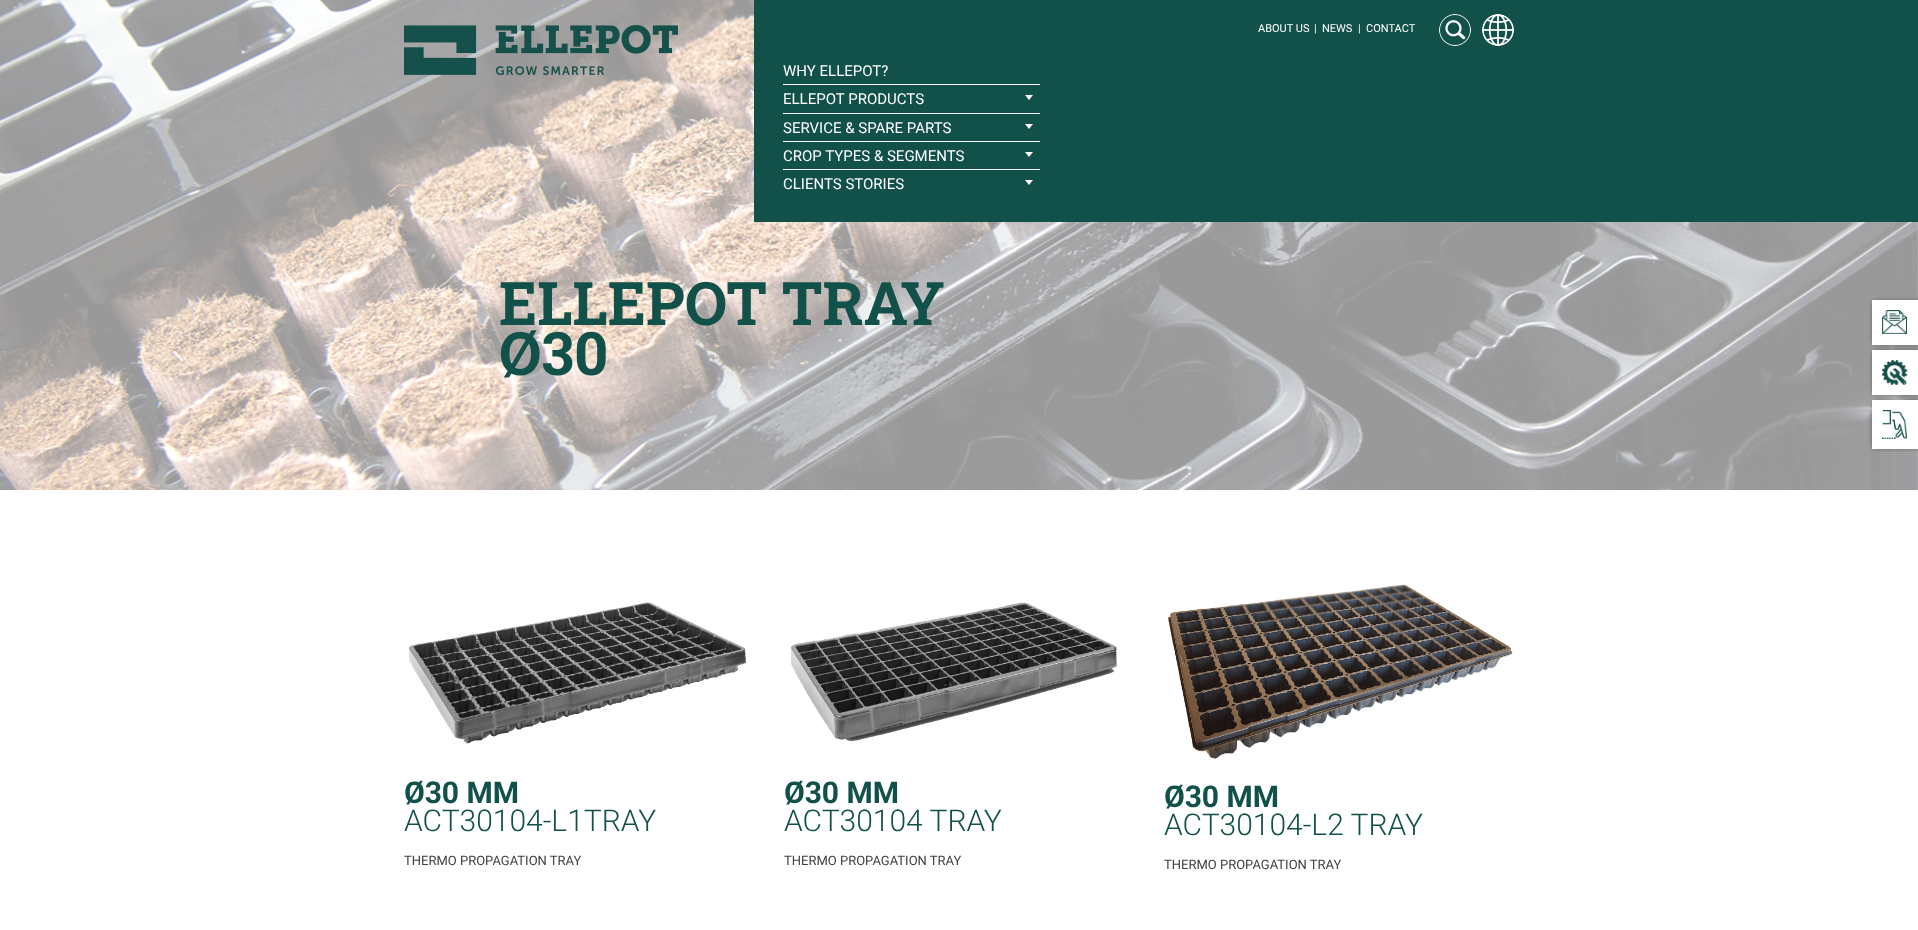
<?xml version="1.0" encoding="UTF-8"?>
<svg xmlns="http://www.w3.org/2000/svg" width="1918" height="930">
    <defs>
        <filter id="blur1" x="-50%" y="-200%" width="200%" height="500%"><feGaussianBlur stdDeviation="2"/></filter>
    </defs>
    <rect width="100%" height="100%" fill="#FFFFFF"/>
    <image x="0" y="0" width="1918" height="490" href="img_04.png"/>
    <rect x="754" y="0" width="1164" height="222" fill="#12514A"/>
    <image x="404" y="25" width="274" height="50" href="img_01.png"/>
    <text x="1258" y="32" font-family="Roboto" font-size="11" fill="#FFFFFF">ABOUT US</text>
    <text x="1314" y="32" font-family="Roboto" font-size="11" fill="#FFFFFF">|</text>
    <text x="1322" y="32" font-family="Roboto" font-size="11" fill="#FFFFFF">NEWS</text>
    <text x="1358" y="32" font-family="Roboto" font-size="11" fill="#FFFFFF">|</text>
    <text x="1366" y="32" font-family="Roboto" font-size="11" fill="#FFFFFF">CONTACT</text>
    <image x="1439" y="14" width="32" height="32" href="img_02.png"/>
    <image x="1482" y="14" width="32" height="32" href="img_03.png"/>
    <rect x="783" y="84" width="257" height="1" fill="#FFFFFF"/>
    <text x="783" y="76" font-family="Roboto" font-size="15" fill="#FFFFFF">WHY ELLEPOT?</text>
    <rect x="783" y="113" width="257" height="1" fill="#FFFFFF"/>
    <text x="783" y="104" font-family="Roboto" font-size="15" fill="#FFFFFF">ELLEPOT PRODUCTS</text>
    <path d="M 1025 95 H 1033 L 1029 100 Z" fill="#FFFFFF"/>
    <rect x="783" y="141" width="257" height="1" fill="#FFFFFF"/>
    <text x="783" y="133" font-family="Roboto" font-size="15" fill="#FFFFFF">SERVICE &amp; SPARE PARTS</text>
    <path d="M 1025 124 H 1033 L 1029 129 Z" fill="#FFFFFF"/>
    <rect x="783" y="169" width="257" height="1" fill="#FFFFFF"/>
    <text x="783" y="161" font-family="Roboto" font-size="15" fill="#FFFFFF">CROP TYPES &amp; SEGMENTS</text>
    <path d="M 1025 152 H 1033 L 1029 157 Z" fill="#FFFFFF"/>
    <text x="783" y="189" font-family="Roboto" font-size="15" fill="#FFFFFF">CLIENTS STORIES</text>
    <path d="M 1025 180 H 1033 L 1029 185 Z" fill="#FFFFFF"/>
    <text font-family="Roboto Slab" font-size="60" font-weight="700" fill="#12514A">
        <tspan x="499" y="325">ELLEPOT TRAY</tspan>
        <tspan x="499" y="375">Ø30</tspan>
    </text>
    <image x="409" y="602" width="337" height="142" href="img_05.png"/>
    <text x="404" y="803" font-family="Roboto" font-size="30" font-weight="700" fill="#12514A">Ø30 MM</text>
    <text x="404" y="831" font-family="Roboto" font-size="30" font-weight="300" fill="#12514A">ACT30104-L1TRAY</text>
    <text x="404" y="865" font-family="Roboto" font-size="13" fill="#404040">THERMO PROPAGATION TRAY</text>
    <image x="790" y="602" width="327" height="139" href="img_06.png"/>
    <text x="784" y="803" font-family="Roboto" font-size="30" font-weight="700" fill="#12514A">Ø30 MM</text>
    <text x="784" y="831" font-family="Roboto" font-size="30" font-weight="300" fill="#12514A">ACT30104 TRAY</text>
    <text x="784" y="865" font-family="Roboto" font-size="13" fill="#404040">THERMO PROPAGATION TRAY</text>
    <image x="1164" y="584" width="350" height="175" href="img_07.png"/>
    <text x="1164" y="807" font-family="Roboto" font-size="30" font-weight="700" fill="#12514A">Ø30 MM</text>
    <text x="1164" y="835" font-family="Roboto" font-size="30" font-weight="300" fill="#12514A">ACT30104-L2 TRAY</text>
    <text x="1164" y="869" font-family="Roboto" font-size="13" fill="#404040">THERMO PROPAGATION TRAY</text>
    <rect x="1872" y="300" width="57" height="45" rx="5" fill="#000000" fill-opacity="0.32" filter="url(#blur1)"/>
    <rect x="1872" y="300" width="46" height="45" fill="#FFFFFF"/>
    <image x="1882" y="310" width="25" height="24" href="img_08.png"/>
    <rect x="1872" y="350" width="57" height="45" rx="5" fill="#000000" fill-opacity="0.32" filter="url(#blur1)"/>
    <rect x="1872" y="350" width="46" height="45" fill="#FFFFFF"/>
    <image x="1882" y="360" width="26" height="25" href="img_09.png"/>
    <rect x="1872" y="400" width="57" height="49" rx="5" fill="#000000" fill-opacity="0.32" filter="url(#blur1)"/>
    <rect x="1872" y="400" width="46" height="49" fill="#FFFFFF"/>
    <image x="1882" y="410" width="25" height="29" href="img_10.png"/>
</svg>
